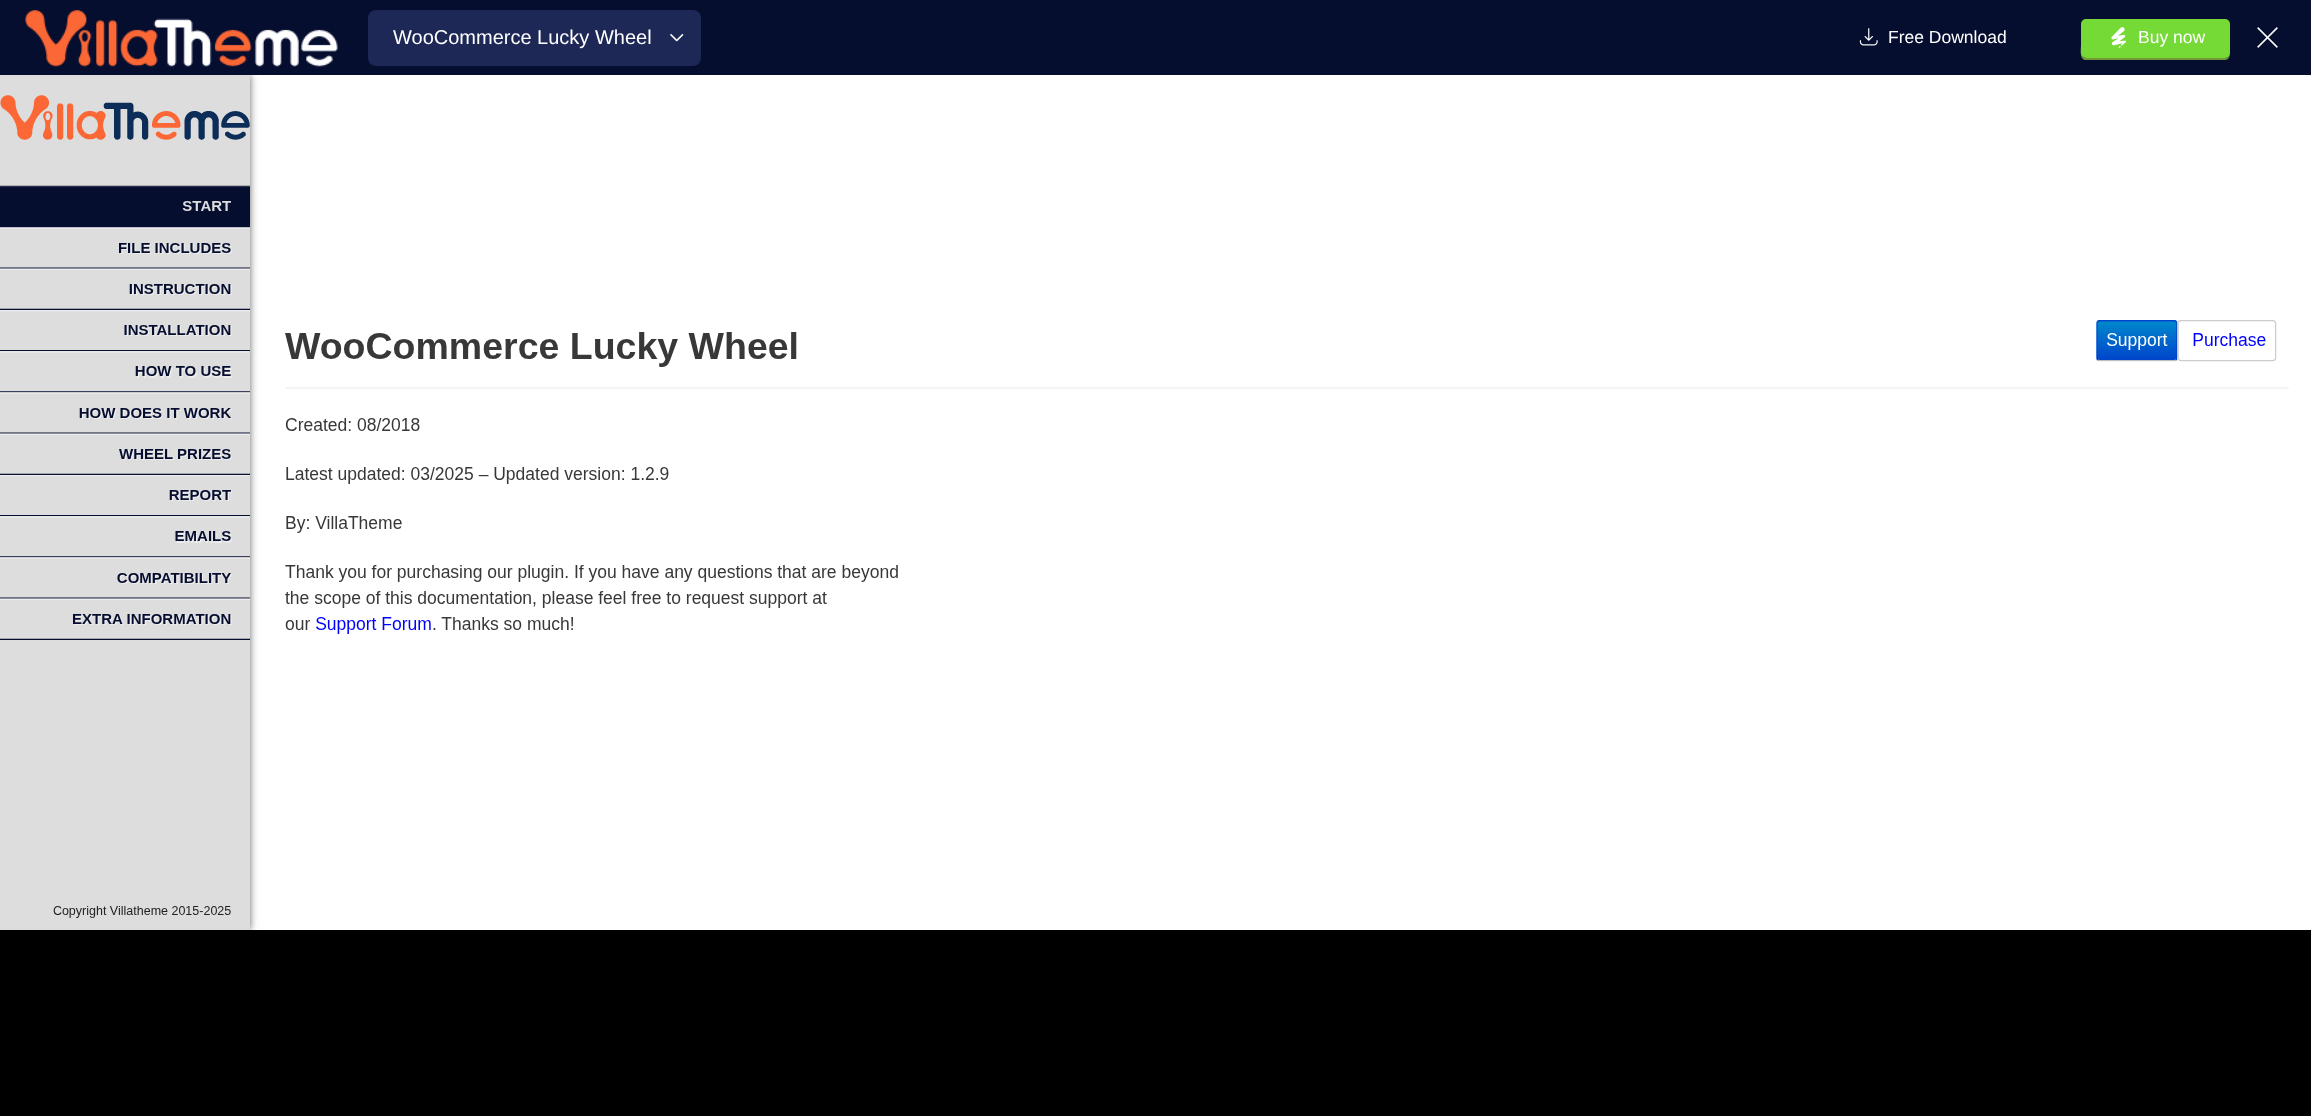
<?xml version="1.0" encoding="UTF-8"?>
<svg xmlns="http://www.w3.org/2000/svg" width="2311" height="1116">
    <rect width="100%" height="100%" fill="#000000"/>
    <rect x="0" y="0" width="2311" height="75" fill="#060E30"/>
    <image x="25" y="10" width="313" height="57" href="img_01.png"/>
    <rect x="368" y="10" width="333" height="56" rx="8" fill="#1E2856"/>
    <text x="393" y="44" font-family="Liberation Sans" font-size="20" fill="#FFFFFF">WooCommerce Lucky Wheel</text>
    <image x="670" y="33" width="14" height="9" href="img_02.png"/>
    <image x="1859" y="28" width="19" height="18" href="img_03.png"/>
    <text x="1888" y="43" font-family="Liberation Sans" font-size="17.5" fill="#FFFFFF">Free Download</text>
    <path d="M 2081 24 V 45 C 2081 49 2079 60 2086 60 H 2225 C 2229 60 2230 56 2230 52 C 2230 55 2228 58 2225 58 H 2086 C 2083 58 2081 55 2081 52 Z" fill="#6F9A37"/>
    <rect x="2081" y="19" width="149" height="39" rx="5" fill="#75D936"/>
    <image x="2111" y="27" width="15" height="21" href="img_04.png"/>
    <text x="2138" y="43" font-family="Liberation Sans" font-size="17.5" fill="#FFFFFF">Buy now</text>
    <image x="2257" y="27" width="21" height="21" href="img_05.png"/>
    <image x="0" y="75" width="2311" height="855" href="img_06.png"/>
</svg>
